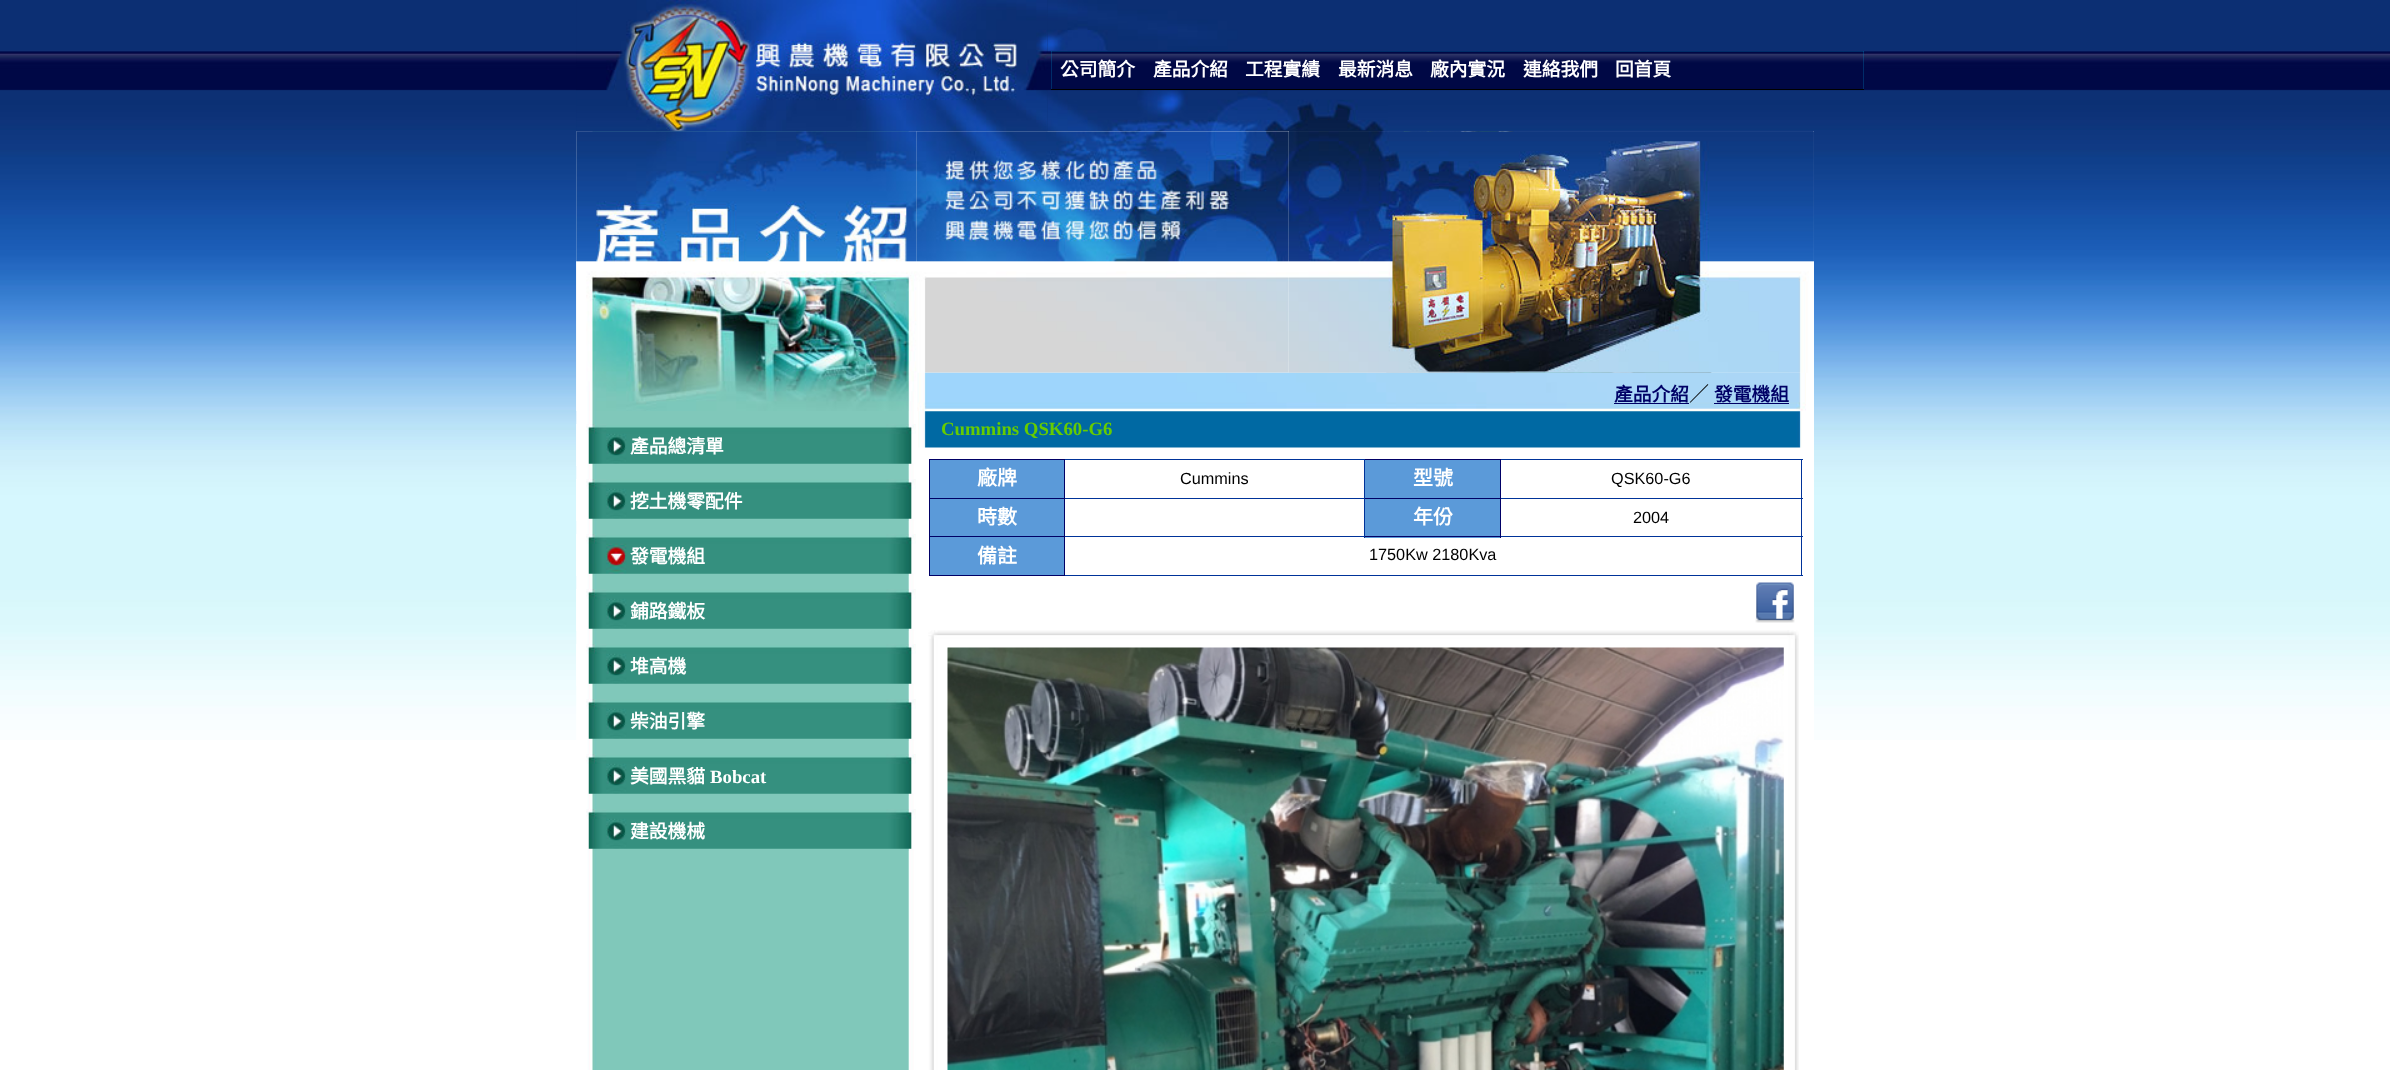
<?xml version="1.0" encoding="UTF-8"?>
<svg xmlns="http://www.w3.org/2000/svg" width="2390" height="1070">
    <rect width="100%" height="100%" fill="#FFFFFF"/>
    <image x="0" y="0" width="2390" height="740" href="img_01.png"/>
    <image x="1047" y="0" width="341" height="131" href="img_03.png"/>
    <image x="576" y="131" width="340" height="939" href="img_05.png"/>
    <rect x="916" y="131" width="898" height="609" fill="#FFFFFF"/>
    <image x="917" y="372" width="889" height="40" href="img_15.png"/>
    <image x="916" y="131" width="373" height="242" href="img_13.png"/>
    <image x="576" y="0" width="472" height="132" href="img_02.png"/>
    <rect x="1051" y="51" width="813" height="38" fill="#0098D7"/>
    <image x="1051" y="51" width="813" height="38" href="img_04.png"/>
    <rect x="1051" y="89" width="813" height="1" fill="#000000"/>
    <text x="1060" y="76" font-family="Noto Sans CJK TC" font-size="18.75" font-weight="700" fill="#FFFFFF">公司簡介</text>
    <text x="1153" y="76" font-family="Noto Sans CJK TC" font-size="18.75" font-weight="700" fill="#FFFFFF">產品介紹</text>
    <text x="1245" y="76" font-family="Noto Sans CJK TC" font-size="18.75" font-weight="700" fill="#FFFFFF">工程實績</text>
    <text x="1338" y="76" font-family="Noto Sans CJK TC" font-size="18.75" font-weight="700" fill="#FFFFFF">最新消息</text>
    <text x="1430" y="76" font-family="Noto Sans CJK TC" font-size="18.75" font-weight="700" fill="#FFFFFF">廠內實況</text>
    <text x="1523" y="76" font-family="Noto Sans CJK TC" font-size="18.75" font-weight="700" fill="#FFFFFF">連絡我們</text>
    <text x="1615" y="76" font-family="Noto Sans CJK TC" font-size="18.75" font-weight="700" fill="#FFFFFF">回首頁</text>
    <image x="576" y="131" width="341" height="280" href="img_06.png"/>
    <image x="576" y="424" width="340" height="42" href="img_07.png"/>
    <text x="630" y="453" font-family="Noto Sans CJK TC" font-size="18.75" font-weight="700" fill="#FFFFFF">產品總清單</text>
    <image x="576" y="479" width="340" height="42" href="img_08.png"/>
    <text x="630" y="508" font-family="Noto Sans CJK TC" font-size="18.75" font-weight="700" fill="#FFFFFF">挖土機零配件</text>
    <image x="576" y="534" width="340" height="42" href="img_09.png"/>
    <text x="630" y="563" font-family="Noto Sans CJK TC" font-size="18.75" font-weight="700" fill="#FFFFFF">發電機組</text>
    <image x="576" y="589" width="340" height="42" href="img_10.png"/>
    <text x="630" y="618" font-family="Noto Sans CJK TC" font-size="18.75" font-weight="700" fill="#FFFFFF">鋪路鐵板</text>
    <image x="576" y="644" width="340" height="42" href="img_11.png"/>
    <text x="630" y="673" font-family="Noto Sans CJK TC" font-size="18.75" font-weight="700" fill="#FFFFFF">堆高機</text>
    <image x="586" y="699" width="330" height="42" href="img_12.png"/>
    <text x="630" y="728" font-family="Noto Sans CJK TC" font-size="18.75" font-weight="700" fill="#FFFFFF">柴油引擎</text>
    <image x="586" y="754" width="330" height="42" href="img_12.png"/>
    <text x="630" y="783" font-family="Noto Sans CJK TC" font-size="18.75" font-weight="700" fill="#FFFFFF">美國黑貓</text>
    <text x="710" y="783" font-family="Liberation Serif" font-size="18.75" font-weight="700" fill="#FFFFFF">Bobcat</text>
    <image x="586" y="809" width="330" height="42" href="img_12.png"/>
    <text x="630" y="838" font-family="Noto Sans CJK TC" font-size="18.75" font-weight="700" fill="#FFFFFF">建設機械</text>
    <image x="1288" y="131" width="526" height="242" href="img_14.png"/>
    <text x="1614" y="401" font-family="Noto Sans CJK TC" font-size="18.75" font-weight="700" fill="#000066">產品介紹</text>
    <rect x="1614" y="403" width="75" height="1" fill="#000066"/>
    <text x="1689" y="401" font-family="Noto Sans CJK TC" font-size="20" fill="#000000">／</text>
    <text x="1714" y="401" font-family="Noto Sans CJK TC" font-size="18.75" font-weight="700" fill="#000066">發電機組</text>
    <rect x="1714" y="403" width="75" height="1" fill="#000066"/>
    <image x="918" y="411" width="884" height="37" href="img_16.png"/>
    <text x="941" y="435" font-family="Liberation Serif" font-size="18.75" font-weight="700" fill="#66CC00">Cummins QSK60-G6</text>
    <rect x="930" y="460" width="134" height="38" fill="#5B9AD9"/>
    <rect x="1500" y="459" width="303" height="1" fill="#003399"/>
    <rect x="1364" y="459" width="137" height="1" fill="#000066"/>
    <rect x="1064" y="459" width="301" height="1" fill="#003399"/>
    <rect x="929" y="459" width="136" height="1" fill="#000066"/>
    <rect x="1501" y="536" width="302" height="1" fill="#003399"/>
    <rect x="1801" y="498" width="1" height="78" fill="#003399"/>
    <rect x="1801" y="459" width="1" height="40" fill="#003399"/>
    <rect x="1500" y="498" width="1" height="40" fill="#000066"/>
    <rect x="1500" y="498" width="303" height="1" fill="#003399"/>
    <rect x="1500" y="459" width="1" height="40" fill="#000066"/>
    <rect x="1365" y="499" width="135" height="39" fill="#5B9AD9"/>
    <rect x="1364" y="536" width="137" height="1" fill="#000066"/>
    <rect x="1364" y="498" width="1" height="40" fill="#003399"/>
    <rect x="1364" y="498" width="137" height="1" fill="#000066"/>
    <rect x="1364" y="459" width="1" height="40" fill="#003399"/>
    <rect x="929" y="498" width="136" height="1" fill="#000066"/>
    <rect x="930" y="499" width="134" height="76" fill="#5B9AD9"/>
    <rect x="929" y="536" width="136" height="1" fill="#000066"/>
    <rect x="1064" y="575" width="739" height="1" fill="#003399"/>
    <rect x="1064" y="536" width="1" height="40" fill="#000066"/>
    <rect x="1064" y="536" width="301" height="1" fill="#003399"/>
    <rect x="1064" y="498" width="1" height="40" fill="#000066"/>
    <rect x="1064" y="498" width="301" height="1" fill="#003399"/>
    <rect x="1064" y="459" width="1" height="40" fill="#000066"/>
    <rect x="929" y="575" width="136" height="1" fill="#000066"/>
    <rect x="929" y="536" width="1" height="40" fill="#000066"/>
    <rect x="929" y="498" width="1" height="40" fill="#000066"/>
    <rect x="929" y="459" width="1" height="40" fill="#000066"/>
    <text x="977" y="485" font-family="Noto Sans CJK TC" font-size="20" font-weight="700" fill="#FFFFFF">廠牌</text>
    <text x="1180" y="484" font-family="Liberation Sans" font-size="16.25" fill="#000000">Cummins</text>
    <rect x="1365" y="460" width="135" height="38" fill="#5B9AD9"/>
    <text x="1413" y="485" font-family="Noto Sans CJK TC" font-size="20" font-weight="700" fill="#FFFFFF">型號</text>
    <text x="1611" y="484" font-family="Liberation Sans" font-size="16.25" fill="#000000">QSK60-G6</text>
    <text x="977" y="524" font-family="Noto Sans CJK TC" font-size="20" font-weight="700" fill="#FFFFFF">時數</text>
    <text x="1413" y="524" font-family="Noto Sans CJK TC" font-size="20" font-weight="700" fill="#FFFFFF">年份</text>
    <text x="1633" y="523" font-family="Liberation Sans" font-size="16.25" fill="#000000">2004</text>
    <text x="977" y="563" font-family="Noto Sans CJK TC" font-size="20" font-weight="700" fill="#FFFFFF">備註</text>
    <text x="1369" y="560" font-family="Liberation Sans" font-size="16.25" fill="#000000">1750Kw 2180Kva</text>
    <image x="1755" y="582" width="40" height="41" href="img_17.png"/>
    <image x="928" y="630" width="871" height="440" href="img_18.png"/>
    <image x="947" y="647" width="837" height="423" href="img_19.png"/>
</svg>
